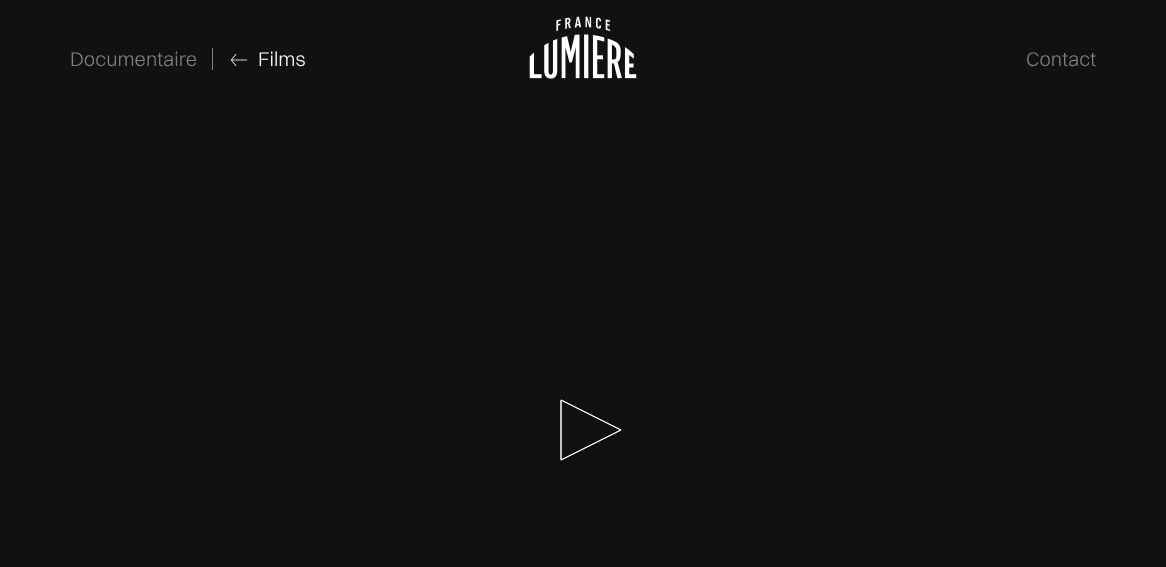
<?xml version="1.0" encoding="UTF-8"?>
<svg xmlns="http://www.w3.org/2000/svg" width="1166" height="567">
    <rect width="100%" height="100%" fill="#111111"/>
    <text x="70" y="66" font-family="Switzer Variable" font-size="20" font-weight="300" fill="#808080">Documentaire</text>
    <rect x="212" y="48" width="1" height="22" fill="#808080"/>
    <image x="231" y="53" width="16" height="14" href="img_01.png"/>
    <text x="258" y="66" font-family="Switzer Variable" font-size="20" font-weight="300" fill="#FFFFFF">Films</text>
    <image x="529" y="16" width="108" height="63" href="img_02.png"/>
    <text x="1026" y="66" font-family="Switzer Variable" font-size="20" font-weight="300" fill="#808080">Contact</text>
    <path d="M 561 460 L 621 430 L 561 400 Z M 561 460 L 621 430 L 561 400 Z" fill="none" stroke="#FFFFFF"/>
</svg>
